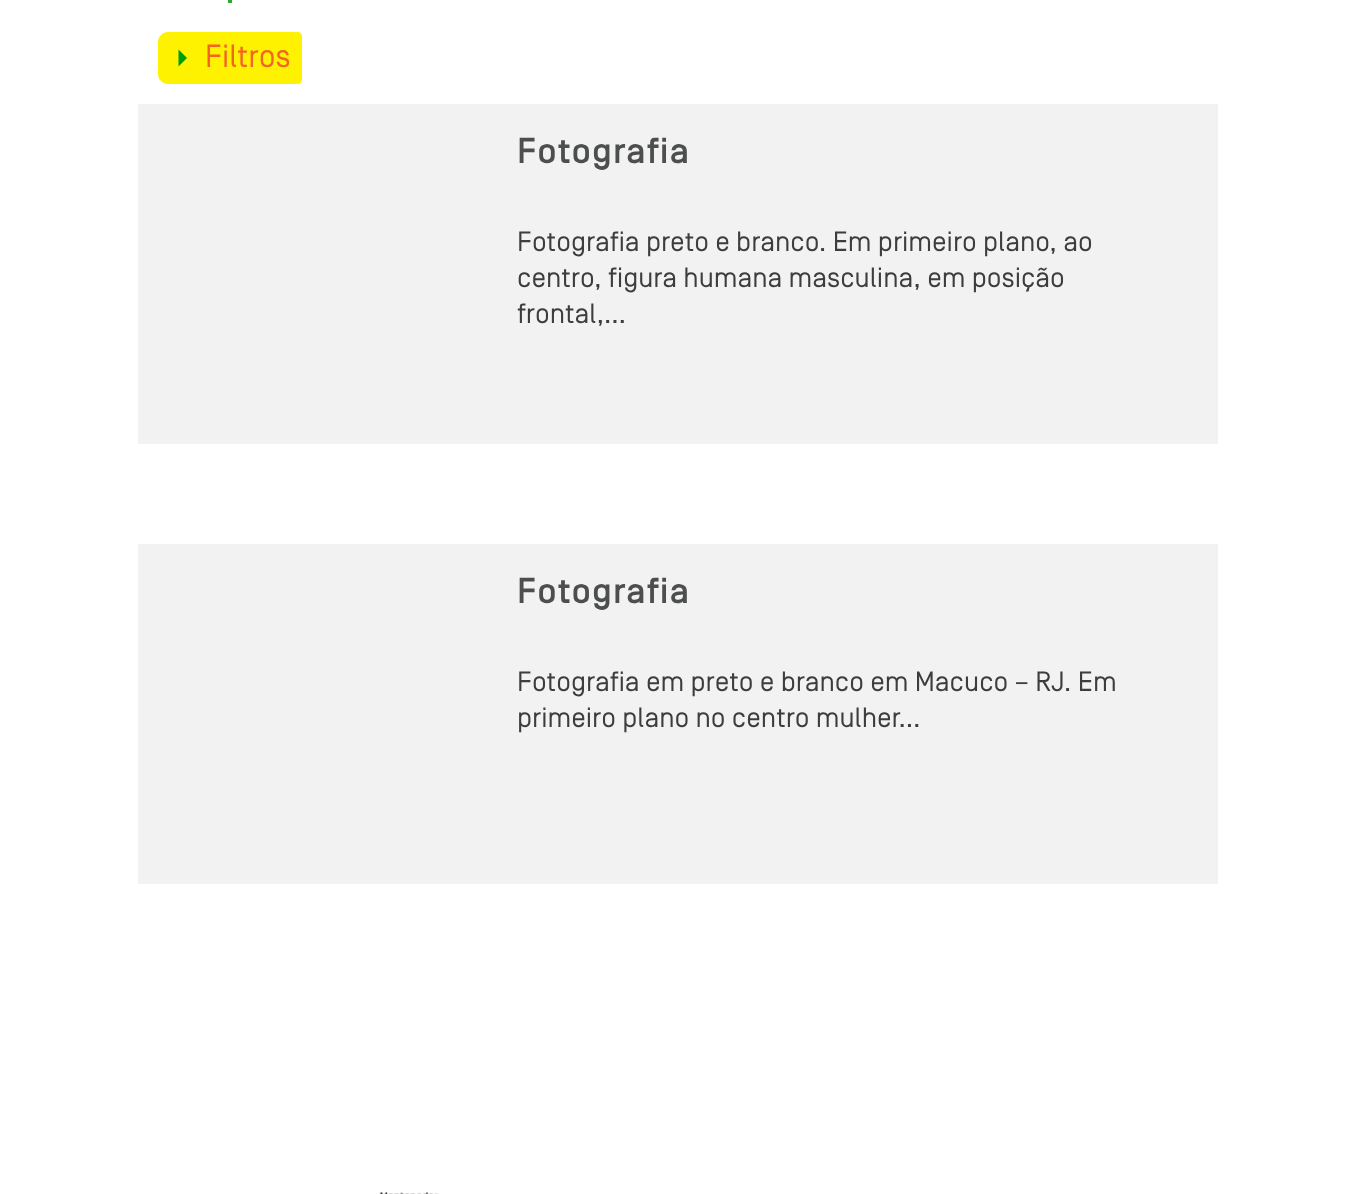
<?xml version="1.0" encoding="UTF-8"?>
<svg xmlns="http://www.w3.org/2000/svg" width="1354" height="1194">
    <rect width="100%" height="100%" fill="#FFFFFF"/>
    <rect x="228" y="0" width="4" height="3" fill="#26AD30"/>
    <path d="M 168 32 H 298 C 300 32 302 34 302 36 V 80 C 302 82 300 84 298 84 H 168 C 162.5 84 158 79.5 158 74 V 42 C 158 36.5 162.5 32 168 32 Z" fill="#FFF200"/>
    <path d="M 178.5 66.5 L 187 58 L 178.5 49.5 Z" fill="#009E0B"/>
    <text x="205" y="67" font-family="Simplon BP" font-size="32" fill="#F26522">Filtros</text>
    <rect x="138" y="104" width="1080" height="340" fill="#F2F2F2"/>
    <text x="517" y="163" font-family="Simplon BP" font-size="36" font-weight="500" letter-spacing="1" fill="#4D4E4E">Fotografia</text>
    <text font-family="Simplon BP" font-size="28" fill="#3D3D3D">
        <tspan x="517" y="251">Fotografia preto e branco. Em primeiro plano, ao</tspan>
        <tspan x="517" y="287">centro, figura humana masculina, em posição</tspan>
        <tspan x="517" y="323">frontal,…</tspan>
    </text>
    <rect x="138" y="544" width="1080" height="340" fill="#F2F2F2"/>
    <text x="517" y="603" font-family="Simplon BP" font-size="36" font-weight="500" letter-spacing="1" fill="#4D4E4E">Fotografia</text>
    <text font-family="Simplon BP" font-size="28" fill="#3D3D3D">
        <tspan x="517" y="691">Fotografia em preto e branco em Macuco – RJ. Em</tspan>
        <tspan x="517" y="727">primeiro plano no centro mulher…</tspan>
    </text>
    <image x="379" y="1191" width="60" height="3" href="img_01.png"/>
</svg>
